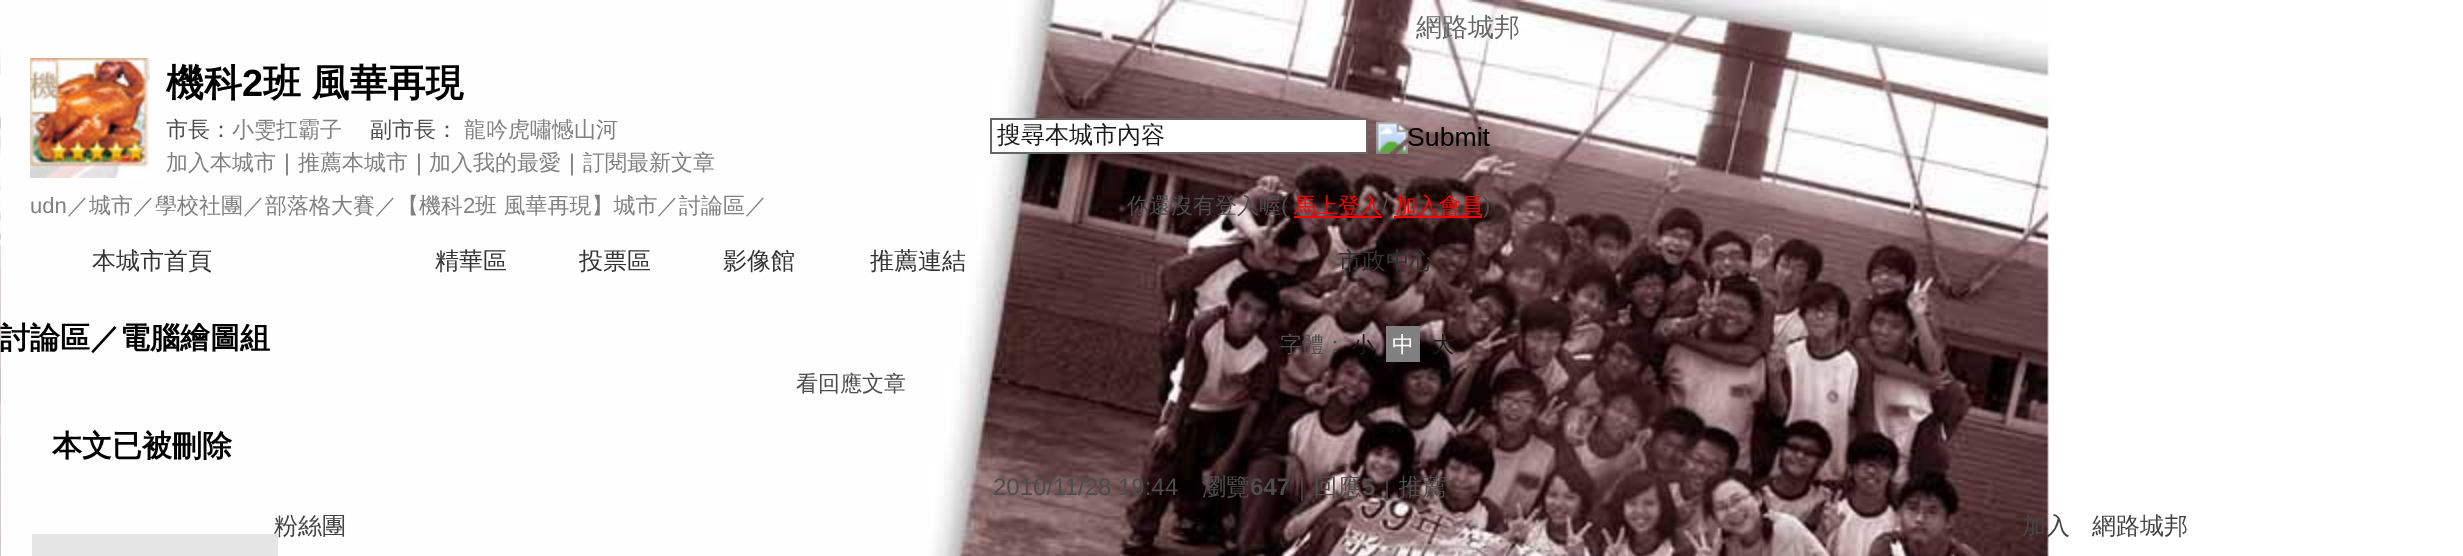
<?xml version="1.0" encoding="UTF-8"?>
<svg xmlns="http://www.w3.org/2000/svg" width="2463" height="556">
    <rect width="100%" height="100%" fill="#FFFFFF"/>
    <image x="0" y="0" width="2049" height="556" href="img_01.png"/>
    <text x="1416" y="36" font-family="WenQuanYi Zen Hei" font-size="26" font-weight="500" fill="#666666">網路城邦</text>
    <image x="30" y="58" width="120" height="120" href="img_02.png"/>
    <text x="166" y="96" font-family="WenQuanYi Zen Hei" font-size="38" font-weight="700" fill="#000000">機科</text>
    <text x="242" y="96" font-family="Liberation Sans" font-size="38" font-weight="700" fill="#000000">2</text>
    <text x="263" y="96" word-spacing="-1" font-family="WenQuanYi Zen Hei" font-size="38" font-weight="700" fill="#000000">班 風華再現</text>
    <text x="166" y="137" font-family="WenQuanYi Zen Hei" font-size="22" font-weight="500" fill="#4D4D4D">市長：</text>
    <text x="232" y="137" font-family="WenQuanYi Zen Hei" font-size="22" font-weight="500" fill="#808080">小雯扛霸子</text>
    <text x="370" y="137" font-family="WenQuanYi Zen Hei" font-size="22" font-weight="500" fill="#4D4D4D">副市長：</text>
    <text x="464" y="137" font-family="WenQuanYi Zen Hei" font-size="22" font-weight="500" fill="#808080">龍吟虎嘯憾山河</text>
    <text x="166" y="170" font-family="WenQuanYi Zen Hei" font-size="22" font-weight="500" fill="#808080">加入本城市</text>
    <text x="276" y="170" font-family="WenQuanYi Zen Hei" font-size="22" font-weight="500" fill="#4D4D4D">｜</text>
    <text x="298" y="170" font-family="WenQuanYi Zen Hei" font-size="22" font-weight="500" fill="#808080">推薦本城市</text>
    <text x="408" y="170" font-family="WenQuanYi Zen Hei" font-size="22" font-weight="500" fill="#4D4D4D">｜</text>
    <text x="429" y="170" font-family="WenQuanYi Zen Hei" font-size="22" font-weight="500" fill="#808080">加入我的最愛</text>
    <text x="561" y="170" font-family="WenQuanYi Zen Hei" font-size="22" font-weight="500" fill="#4D4D4D">｜</text>
    <text x="583" y="170" font-family="WenQuanYi Zen Hei" font-size="22" font-weight="500" fill="#808080">訂閱最新文章</text>
    <rect x="993" y="120" width="373" height="32" fill="#FFFFFF"/>
    <rect x="991" y="119" width="376" height="34" fill="none" stroke="#666666" stroke-width="2"/>
    <text x="997" y="143" font-family="WenQuanYi Zen Hei" font-size="24" font-weight="500" fill="#1A1A1A">搜尋本城市內容</text>
    <image x="1376" y="122" width="114" height="32" href="img_03.png"/>
    <text x="30" y="213" font-family="Liberation Sans" font-size="22" fill="#808080">udn</text>
    <text x="67" y="213" font-family="WenQuanYi Zen Hei" font-size="22" font-weight="500" fill="#808080">／城市／學校社團／部落格大賽／【機科</text>
    <text x="463" y="213" font-family="Liberation Sans" font-size="22" fill="#808080">2</text>
    <text x="475" y="213" font-family="WenQuanYi Zen Hei" font-size="22" font-weight="500" fill="#808080">班 風華再現】城市</text>
    <text x="657" y="213" font-family="WenQuanYi Zen Hei" font-size="22" font-weight="500" fill="#808080">／討論區／</text>
    <text x="1127" y="213" font-family="WenQuanYi Zen Hei" font-size="22" font-weight="500" fill="#4D4D4D">你還沒有登入喔</text>
    <text x="1281" y="213" font-family="Liberation Sans" font-size="22" fill="#4D4D4D">(</text>
    <rect x="1294" y="216" width="88" height="2" fill="#FF0000"/>
    <text x="1294" y="213" font-family="WenQuanYi Zen Hei" font-size="22" font-weight="500" fill="#FF0000">馬上登入</text>
    <text x="1382" y="213" font-family="Liberation Sans" font-size="22" fill="#4D4D4D">/</text>
    <rect x="1394" y="216" width="88" height="2" fill="#FF0000"/>
    <text x="1395" y="213" font-family="WenQuanYi Zen Hei" font-size="22" font-weight="500" fill="#FF0000">加入會員</text>
    <text x="1483" y="213" font-family="Liberation Sans" font-size="22" fill="#4D4D4D">)</text>
    <text x="92" y="269" font-family="WenQuanYi Zen Hei" font-size="24" font-weight="500" fill="#333333">本城市首頁</text>
    <text x="435" y="269" font-family="WenQuanYi Zen Hei" font-size="24" font-weight="500" fill="#333333">精華區</text>
    <text x="579" y="269" font-family="WenQuanYi Zen Hei" font-size="24" font-weight="500" fill="#333333">投票區</text>
    <text x="723" y="269" font-family="WenQuanYi Zen Hei" font-size="24" font-weight="500" fill="#333333">影像館</text>
    <text x="870" y="269" font-family="WenQuanYi Zen Hei" font-size="24" font-weight="500" fill="#333333">推薦連結</text>
    <text x="1338" y="269" font-family="WenQuanYi Zen Hei" font-size="24" font-weight="500" fill="#333333">市政中心</text>
    <text x="0" y="348" font-family="WenQuanYi Zen Hei" font-size="30" font-weight="700" fill="#000000">討論區／電腦繪圖組</text>
    <text x="1280" y="352" font-family="WenQuanYi Zen Hei" font-size="22" font-weight="500" fill="#4D4D4D">字體：</text>
    <text x="1352" y="352" font-family="WenQuanYi Zen Hei" font-size="22" font-weight="500" fill="#1A1A1A">小</text>
    <rect x="1386" y="326" width="34" height="36" fill="#808080"/>
    <text x="1392" y="352" font-family="WenQuanYi Zen Hei" font-size="22" font-weight="500" fill="#FFFFFF">中</text>
    <text x="1432" y="352" font-family="WenQuanYi Zen Hei" font-size="22" font-weight="500" fill="#1A1A1A">大</text>
    <text x="796" y="391" font-family="WenQuanYi Zen Hei" font-size="22" font-weight="500" fill="#4D4D4D">看回應文章</text>
    <text x="52" y="456" font-family="WenQuanYi Zen Hei" font-size="30" font-weight="700" fill="#000000">本文已被刪除</text>
    <text x="993" y="495" font-family="Liberation Sans" font-size="24" fill="#4D4D4D">2010/11/28 19:44</text>
    <text x="1202" y="495" font-family="WenQuanYi Zen Hei" font-size="24" font-weight="500" fill="#4D4D4D">瀏覽</text>
    <text x="1250" y="495" font-family="Liberation Sans" font-size="24" font-weight="700" fill="#4D4D4D">647</text>
    <text x="1290" y="495" font-family="WenQuanYi Zen Hei" font-size="24" font-weight="500" fill="#4D4D4D">｜回應</text>
    <text x="1362" y="495" font-family="Liberation Sans" font-size="24" font-weight="700" fill="#4D4D4D">5</text>
    <text x="1375" y="495" font-family="WenQuanYi Zen Hei" font-size="24" font-weight="500" fill="#4D4D4D">｜推薦</text>
    <rect x="32" y="534" width="246" height="22" fill="#E5E5E5"/>
    <text x="274" y="534" font-family="WenQuanYi Zen Hei" font-size="24" font-weight="500" fill="#444444">粉絲團</text>
    <text x="2022" y="534" font-family="WenQuanYi Zen Hei" font-size="24" font-weight="500" fill="#444444">加入</text>
    <text x="2092" y="534" font-family="WenQuanYi Zen Hei" font-size="24" font-weight="500" fill="#444444">網路城邦</text>
</svg>
